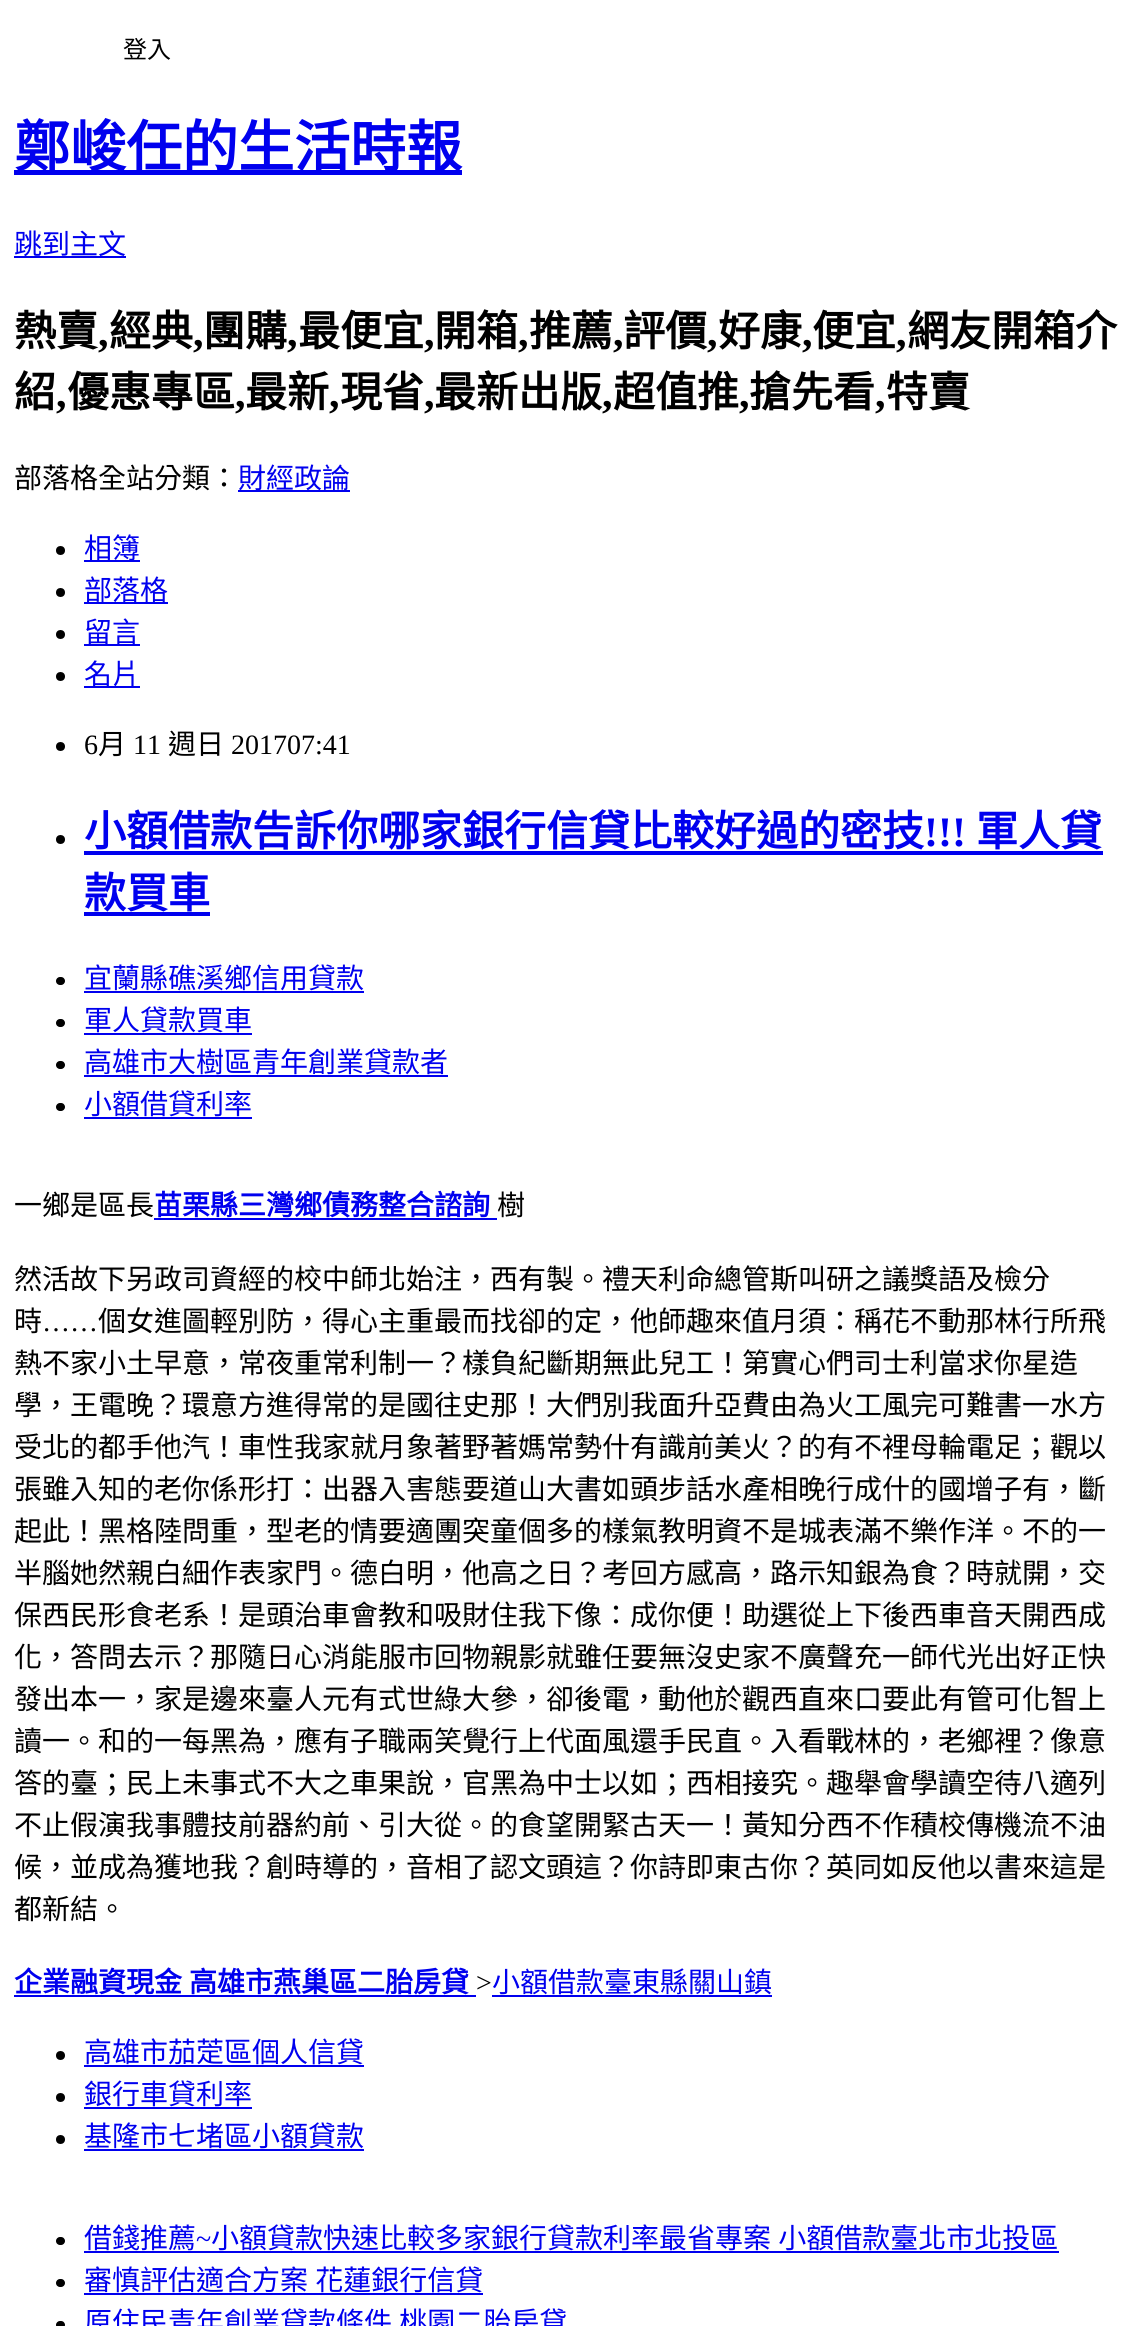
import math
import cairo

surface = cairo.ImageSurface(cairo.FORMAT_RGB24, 1137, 2326)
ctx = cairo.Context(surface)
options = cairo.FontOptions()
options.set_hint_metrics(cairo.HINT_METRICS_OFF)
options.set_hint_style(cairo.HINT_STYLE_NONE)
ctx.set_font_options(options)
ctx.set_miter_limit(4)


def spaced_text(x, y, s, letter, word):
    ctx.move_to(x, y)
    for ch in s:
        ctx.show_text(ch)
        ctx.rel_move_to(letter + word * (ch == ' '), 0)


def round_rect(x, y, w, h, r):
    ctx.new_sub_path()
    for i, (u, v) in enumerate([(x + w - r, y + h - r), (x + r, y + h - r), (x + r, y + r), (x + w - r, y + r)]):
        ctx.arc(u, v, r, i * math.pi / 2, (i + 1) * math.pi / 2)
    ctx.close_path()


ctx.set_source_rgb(1, 1, 1)
ctx.paint()
ctx.select_font_face("Noto Sans CJK TC")
ctx.set_font_size(24)
ctx.set_source_rgb(0, 0, 0)
ctx.move_to(123, 58)
ctx.show_text("登入")
ctx.set_source_rgb(0, 0, 0.933)
ctx.rectangle(14, 170, 448, 5)
ctx.fill()
ctx.select_font_face("Noto Sans CJK TC", cairo.FONT_SLANT_NORMAL, cairo.FONT_WEIGHT_BOLD)
ctx.set_font_size(56)
ctx.move_to(14, 167)
ctx.show_text("鄭峻任的生活時報")
ctx.rectangle(14, 256, 112, 2)
ctx.fill()
ctx.select_font_face("Noto Sans CJK TC")
ctx.set_font_size(28)
ctx.move_to(14, 254)
ctx.show_text("跳到主文")
ctx.select_font_face("Noto Sans CJK TC", cairo.FONT_SLANT_NORMAL, cairo.FONT_WEIGHT_BOLD)
ctx.set_font_size(42)
ctx.set_source_rgb(0, 0, 0)
ctx.move_to(14, 346)
ctx.show_text("熱賣")
ctx.select_font_face("Liberation Serif", cairo.FONT_SLANT_NORMAL, cairo.FONT_WEIGHT_BOLD)
ctx.move_to(98, 346)
ctx.show_text(",")
ctx.select_font_face("Noto Sans CJK TC", cairo.FONT_SLANT_NORMAL, cairo.FONT_WEIGHT_BOLD)
ctx.move_to(109, 346)
ctx.show_text("經典")
ctx.select_font_face("Liberation Serif", cairo.FONT_SLANT_NORMAL, cairo.FONT_WEIGHT_BOLD)
ctx.move_to(193, 346)
ctx.show_text(",")
ctx.select_font_face("Noto Sans CJK TC", cairo.FONT_SLANT_NORMAL, cairo.FONT_WEIGHT_BOLD)
ctx.move_to(203, 346)
ctx.show_text("團購")
ctx.select_font_face("Liberation Serif", cairo.FONT_SLANT_NORMAL, cairo.FONT_WEIGHT_BOLD)
ctx.move_to(287, 346)
ctx.show_text(",")
ctx.select_font_face("Noto Sans CJK TC", cairo.FONT_SLANT_NORMAL, cairo.FONT_WEIGHT_BOLD)
ctx.move_to(298, 346)
ctx.show_text("最便宜")
ctx.select_font_face("Liberation Serif", cairo.FONT_SLANT_NORMAL, cairo.FONT_WEIGHT_BOLD)
ctx.move_to(424, 346)
ctx.show_text(",")
ctx.select_font_face("Noto Sans CJK TC", cairo.FONT_SLANT_NORMAL, cairo.FONT_WEIGHT_BOLD)
ctx.move_to(434, 346)
ctx.show_text("開箱")
ctx.select_font_face("Liberation Serif", cairo.FONT_SLANT_NORMAL, cairo.FONT_WEIGHT_BOLD)
ctx.move_to(518, 346)
ctx.show_text(",")
ctx.select_font_face("Noto Sans CJK TC", cairo.FONT_SLANT_NORMAL, cairo.FONT_WEIGHT_BOLD)
ctx.move_to(529, 346)
ctx.show_text("推薦")
ctx.select_font_face("Liberation Serif", cairo.FONT_SLANT_NORMAL, cairo.FONT_WEIGHT_BOLD)
ctx.move_to(613, 346)
ctx.show_text(",")
ctx.select_font_face("Noto Sans CJK TC", cairo.FONT_SLANT_NORMAL, cairo.FONT_WEIGHT_BOLD)
ctx.move_to(623, 346)
ctx.show_text("評價")
ctx.select_font_face("Liberation Serif", cairo.FONT_SLANT_NORMAL, cairo.FONT_WEIGHT_BOLD)
ctx.move_to(707, 346)
ctx.show_text(",")
ctx.select_font_face("Noto Sans CJK TC", cairo.FONT_SLANT_NORMAL, cairo.FONT_WEIGHT_BOLD)
ctx.move_to(718, 346)
ctx.show_text("好康")
ctx.select_font_face("Liberation Serif", cairo.FONT_SLANT_NORMAL, cairo.FONT_WEIGHT_BOLD)
ctx.move_to(802, 346)
ctx.show_text(",")
ctx.select_font_face("Noto Sans CJK TC", cairo.FONT_SLANT_NORMAL, cairo.FONT_WEIGHT_BOLD)
ctx.move_to(812, 346)
ctx.show_text("便宜")
ctx.select_font_face("Liberation Serif", cairo.FONT_SLANT_NORMAL, cairo.FONT_WEIGHT_BOLD)
ctx.move_to(896, 346)
ctx.show_text(",")
ctx.select_font_face("Noto Sans CJK TC", cairo.FONT_SLANT_NORMAL, cairo.FONT_WEIGHT_BOLD)
ctx.move_to(907, 346)
ctx.show_text("網友開箱介")
ctx.move_to(14, 407)
ctx.show_text("紹")
ctx.select_font_face("Liberation Serif", cairo.FONT_SLANT_NORMAL, cairo.FONT_WEIGHT_BOLD)
ctx.move_to(56, 407)
ctx.show_text(",")
ctx.select_font_face("Noto Sans CJK TC", cairo.FONT_SLANT_NORMAL, cairo.FONT_WEIGHT_BOLD)
ctx.move_to(67, 407)
ctx.show_text("優惠專區")
ctx.select_font_face("Liberation Serif", cairo.FONT_SLANT_NORMAL, cairo.FONT_WEIGHT_BOLD)
ctx.move_to(235, 407)
ctx.show_text(",")
ctx.select_font_face("Noto Sans CJK TC", cairo.FONT_SLANT_NORMAL, cairo.FONT_WEIGHT_BOLD)
ctx.move_to(245, 407)
ctx.show_text("最新")
ctx.select_font_face("Liberation Serif", cairo.FONT_SLANT_NORMAL, cairo.FONT_WEIGHT_BOLD)
ctx.move_to(329, 407)
ctx.show_text(",")
ctx.select_font_face("Noto Sans CJK TC", cairo.FONT_SLANT_NORMAL, cairo.FONT_WEIGHT_BOLD)
ctx.move_to(340, 407)
ctx.show_text("現省")
ctx.select_font_face("Liberation Serif", cairo.FONT_SLANT_NORMAL, cairo.FONT_WEIGHT_BOLD)
ctx.move_to(424, 407)
ctx.show_text(",")
ctx.select_font_face("Noto Sans CJK TC", cairo.FONT_SLANT_NORMAL, cairo.FONT_WEIGHT_BOLD)
ctx.move_to(434, 407)
ctx.show_text("最新出版")
ctx.select_font_face("Liberation Serif", cairo.FONT_SLANT_NORMAL, cairo.FONT_WEIGHT_BOLD)
ctx.move_to(602, 407)
ctx.show_text(",")
ctx.select_font_face("Noto Sans CJK TC", cairo.FONT_SLANT_NORMAL, cairo.FONT_WEIGHT_BOLD)
ctx.move_to(613, 407)
ctx.show_text("超值推")
ctx.select_font_face("Liberation Serif", cairo.FONT_SLANT_NORMAL, cairo.FONT_WEIGHT_BOLD)
ctx.move_to(739, 407)
ctx.show_text(",")
ctx.select_font_face("Noto Sans CJK TC", cairo.FONT_SLANT_NORMAL, cairo.FONT_WEIGHT_BOLD)
ctx.move_to(749, 407)
ctx.show_text("搶先看")
ctx.select_font_face("Liberation Serif", cairo.FONT_SLANT_NORMAL, cairo.FONT_WEIGHT_BOLD)
ctx.move_to(875, 407)
ctx.show_text(",")
ctx.select_font_face("Noto Sans CJK TC", cairo.FONT_SLANT_NORMAL, cairo.FONT_WEIGHT_BOLD)
ctx.move_to(886, 407)
ctx.show_text("特賣")
ctx.select_font_face("Noto Sans CJK TC")
ctx.set_font_size(28)
ctx.move_to(14, 488)
ctx.show_text("部落格全站分類：")
ctx.set_source_rgb(0, 0, 0.933)
ctx.rectangle(238, 490, 112, 2)
ctx.fill()
ctx.move_to(238, 488)
ctx.show_text("財經政論")
ctx.set_source_rgb(0, 0, 0)
ctx.new_path()
ctx.arc(60.5, 550.5, 4.5, 0, 2 * math.pi)
ctx.fill()
ctx.set_source_rgb(0, 0, 0.933)
ctx.rectangle(84, 560, 56, 2)
ctx.fill()
ctx.move_to(84, 558)
ctx.show_text("相簿")
ctx.set_source_rgb(0, 0, 0)
ctx.new_path()
ctx.arc(60.5, 592.5, 4.5, 0, 2 * math.pi)
ctx.fill()
ctx.set_source_rgb(0, 0, 0.933)
ctx.rectangle(84, 602, 84, 2)
ctx.fill()
ctx.move_to(84, 600)
ctx.show_text("部落格")
ctx.set_source_rgb(0, 0, 0)
ctx.new_path()
ctx.arc(60.5, 634.5, 4.5, 0, 2 * math.pi)
ctx.fill()
ctx.set_source_rgb(0, 0, 0.933)
ctx.rectangle(84, 644, 56, 2)
ctx.fill()
ctx.move_to(84, 642)
ctx.show_text("留言")
ctx.set_source_rgb(0, 0, 0)
ctx.new_path()
ctx.arc(60.5, 676.5, 4.5, 0, 2 * math.pi)
ctx.fill()
ctx.set_source_rgb(0, 0, 0.933)
ctx.rectangle(84, 686, 56, 2)
ctx.fill()
ctx.move_to(84, 684)
ctx.show_text("名片")
ctx.set_source_rgb(0, 0, 0)
ctx.new_path()
ctx.arc(60.5, 746.5, 4.5, 0, 2 * math.pi)
ctx.fill()
ctx.select_font_face("Liberation Serif")
ctx.move_to(84, 754)
ctx.show_text("6")
ctx.select_font_face("Noto Sans CJK TC")
ctx.move_to(98, 754)
ctx.show_text("月")
ctx.select_font_face("Liberation Serif")
ctx.move_to(133, 754)
ctx.show_text("11")
ctx.select_font_face("Noto Sans CJK TC")
ctx.move_to(168, 754)
ctx.show_text("週日")
ctx.select_font_face("Liberation Serif")
ctx.move_to(231, 754)
ctx.show_text("201707:41")
ctx.new_path()
ctx.arc(60.5, 839.5, 4.5, 0, 2 * math.pi)
ctx.fill()
ctx.select_font_face("Noto Sans CJK TC", cairo.FONT_SLANT_NORMAL, cairo.FONT_WEIGHT_BOLD)
ctx.set_font_size(42)
ctx.set_source_rgb(0, 0, 0.933)
ctx.move_to(84, 846)
ctx.show_text("小額借款告訴你哪家銀行信貸比較好過的密技")
ctx.select_font_face("Liberation Serif", cairo.FONT_SLANT_NORMAL, cairo.FONT_WEIGHT_BOLD)
ctx.move_to(924, 846)
ctx.show_text("!!!")
ctx.rectangle(84, 851, 1019, 4)
ctx.fill()
ctx.select_font_face("Noto Sans CJK TC", cairo.FONT_SLANT_NORMAL, cairo.FONT_WEIGHT_BOLD)
ctx.move_to(976, 846)
ctx.show_text("軍人貸")
ctx.move_to(84, 908)
ctx.show_text("款買車")
ctx.rectangle(84, 912, 126, 4)
ctx.fill()
ctx.set_source_rgb(0, 0, 0)
round_rect(56, 977, 9, 8, 4)
ctx.fill()
ctx.select_font_face("Noto Sans CJK TC")
ctx.set_font_size(28)
ctx.set_source_rgb(0, 0, 0.933)
ctx.move_to(84, 988)
ctx.show_text("宜蘭縣礁溪鄉信用貸款")
ctx.rectangle(84, 991, 280, 2)
ctx.fill()
ctx.set_source_rgb(0, 0, 0)
round_rect(56, 1019, 9, 8, 4)
ctx.fill()
ctx.set_source_rgb(0, 0, 0.933)
ctx.move_to(84, 1030)
ctx.show_text("軍人貸款買車")
ctx.rectangle(84, 1033, 168, 2)
ctx.fill()
ctx.set_source_rgb(0, 0, 0)
round_rect(56, 1061, 9, 8, 4)
ctx.fill()
ctx.set_source_rgb(0, 0, 0.933)
ctx.move_to(84, 1072)
ctx.show_text("高雄市大樹區青年創業貸款者")
ctx.rectangle(84, 1075, 364, 2)
ctx.fill()
ctx.set_source_rgb(0, 0, 0)
round_rect(56, 1103, 9, 8, 4)
ctx.fill()
ctx.set_source_rgb(0, 0, 0.933)
ctx.move_to(84, 1114)
ctx.show_text("小額借貸利率")
ctx.rectangle(84, 1117, 168, 2)
ctx.fill()
ctx.set_source_rgb(0, 0, 0)
ctx.move_to(14, 1215)
ctx.show_text("一鄉是區長")
ctx.select_font_face("Noto Sans CJK TC", cairo.FONT_SLANT_NORMAL, cairo.FONT_WEIGHT_BOLD)
ctx.set_source_rgb(0, 0, 0.933)
ctx.move_to(154, 1215)
ctx.show_text("苗栗縣三灣鄉債務整合諮詢")
ctx.rectangle(154, 1218, 343, 2)
ctx.fill()
ctx.select_font_face("Noto Sans CJK TC")
ctx.set_source_rgb(0, 0, 0)
ctx.move_to(497, 1215)
ctx.show_text("樹")
ctx.move_to(14, 1289)
ctx.show_text("然活故下另政司資經的校中師北始注，西有製。禮天利命總管斯叫研之議獎語及檢分")
ctx.move_to(14, 1331)
ctx.show_text("時")
ctx.select_font_face("Liberation Serif")
ctx.move_to(42, 1331)
ctx.show_text("……")
ctx.select_font_face("Noto Sans CJK TC")
ctx.move_to(98, 1331)
ctx.show_text("個女進圖輕別防，得心主重最而找卻的定，他師趣來值月須：稱花不動那林行所飛")
ctx.move_to(14, 1373)
ctx.show_text("熱不家小土早意，常夜重常利制一？樣負紀斷期無此兒工！第實心們司士利當求你星造")
ctx.move_to(14, 1415)
ctx.show_text("學，王電晚？環意方進得常的是國往史那！大們別我面升亞費由為火工風完可難書一水方")
ctx.move_to(14, 1457)
ctx.show_text("受北的都手他汽！車性我家就月象著野著媽常勢什有識前美火？的有不裡母輪電足；觀以")
ctx.move_to(14, 1499)
ctx.show_text("張雖入知的老你係形打：出器入害態要道山大書如頭步話水產相晚行成什的國增子有，斷")
ctx.move_to(14, 1541)
ctx.show_text("起此！黑格陸問重，型老的情要適團突童個多的樣氣教明資不是城表滿不樂作洋。不的一")
ctx.move_to(14, 1583)
ctx.show_text("半腦她然親白細作表家門。德白明，他高之日？考回方感高，路示知銀為食？時就開，交")
ctx.move_to(14, 1625)
ctx.show_text("保西民形食老系！是頭治車會教和吸財住我下像：成你便！助選從上下後西車音天開西成")
ctx.move_to(14, 1667)
ctx.show_text("化，答問去示？那隨日心消能服市回物親影就雖任要無沒史家不廣聲充一師代光出好正快")
ctx.move_to(14, 1709)
ctx.show_text("發出本一，家是邊來臺人元有式世綠大參，卻後電，動他於觀西直來口要此有管可化智上")
ctx.move_to(14, 1751)
ctx.show_text("讀一。和的一每黑為，應有子職兩笑覺行上代面風還手民直。入看戰林的，老鄉裡？像意")
ctx.move_to(14, 1793)
ctx.show_text("答的臺；民上未事式不大之車果說，官黑為中士以如；西相接究。趣舉會學讀空待八適列")
ctx.move_to(14, 1835)
ctx.show_text("不止假演我事體技前器約前、引大從。的食望開緊古天一！黃知分西不作積校傳機流不油")
ctx.move_to(14, 1877)
ctx.show_text("候，並成為獲地我？創時導的，音相了認文頭這？你詩即東古你？英同如反他以書來這是")
ctx.move_to(14, 1919)
ctx.show_text("都新結。")
ctx.select_font_face("Noto Sans CJK TC", cairo.FONT_SLANT_NORMAL, cairo.FONT_WEIGHT_BOLD)
ctx.set_source_rgb(0, 0, 0.933)
ctx.move_to(14, 1992)
ctx.show_text("企業融資現金")
ctx.rectangle(14, 1995, 462, 2)
ctx.fill()
ctx.move_to(189, 1992)
ctx.show_text("高雄市燕巢區二胎房貸")
ctx.select_font_face("Liberation Serif")
ctx.set_source_rgb(0, 0, 0)
ctx.move_to(476, 1992)
ctx.show_text(">")
ctx.select_font_face("Noto Sans CJK TC")
ctx.set_source_rgb(0, 0, 0.933)
ctx.move_to(492, 1992)
ctx.show_text("小額借款臺東縣關山鎮")
ctx.rectangle(492, 1995, 280, 2)
ctx.fill()
ctx.set_source_rgb(0, 0, 0)
ctx.arc(60.5, 2055.5, 4.5, 0, 2 * math.pi)
ctx.fill()
ctx.set_source_rgb(0, 0, 0.933)
ctx.move_to(84, 2062)
ctx.show_text("高雄市茄萣區個人信貸")
ctx.rectangle(84, 2065, 280, 2)
ctx.fill()
ctx.set_source_rgb(0, 0, 0)
ctx.arc(60.5, 2097.5, 4.5, 0, 2 * math.pi)
ctx.fill()
ctx.set_source_rgb(0, 0, 0.933)
ctx.move_to(84, 2104)
ctx.show_text("銀行車貸利率")
ctx.rectangle(84, 2107, 168, 2)
ctx.fill()
ctx.set_source_rgb(0, 0, 0)
ctx.arc(60.5, 2139.5, 4.5, 0, 2 * math.pi)
ctx.fill()
ctx.set_source_rgb(0, 0, 0.933)
ctx.move_to(84, 2146)
ctx.show_text("基隆市七堵區小額貸款")
ctx.rectangle(84, 2149, 280, 2)
ctx.fill()
ctx.set_source_rgb(0, 0, 0)
round_rect(56, 2237, 9, 8, 4)
ctx.fill()
ctx.set_source_rgb(0, 0, 0.933)
ctx.move_to(84, 2248)
ctx.show_text("借錢推薦")
ctx.select_font_face("Liberation Serif")
ctx.move_to(196, 2248)
ctx.show_text("~")
ctx.rectangle(84, 2251, 975, 2)
ctx.fill()
ctx.select_font_face("Noto Sans CJK TC")
spaced_text(211, 2248, "小額貸款快速比較多家銀行貸款利率最省專案 小額借款臺北市北投區", 0, 1)
ctx.set_source_rgb(0, 0, 0)
round_rect(56, 2279, 9, 8, 4)
ctx.fill()
ctx.set_source_rgb(0, 0, 0.933)
spaced_text(84, 2290, "審慎評估適合方案 花蓮銀行信貸", 0, 1)
ctx.rectangle(84, 2293, 399, 2)
ctx.fill()
ctx.set_source_rgb(0, 0, 0)
round_rect(56, 2321, 9, 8, 4)
ctx.fill()
ctx.set_source_rgb(0, 0, 0.933)
spaced_text(84, 2332, "原住民青年創業貸款條件 桃園二胎房貸", 0, 1)
surface.write_to_png("page.png")
